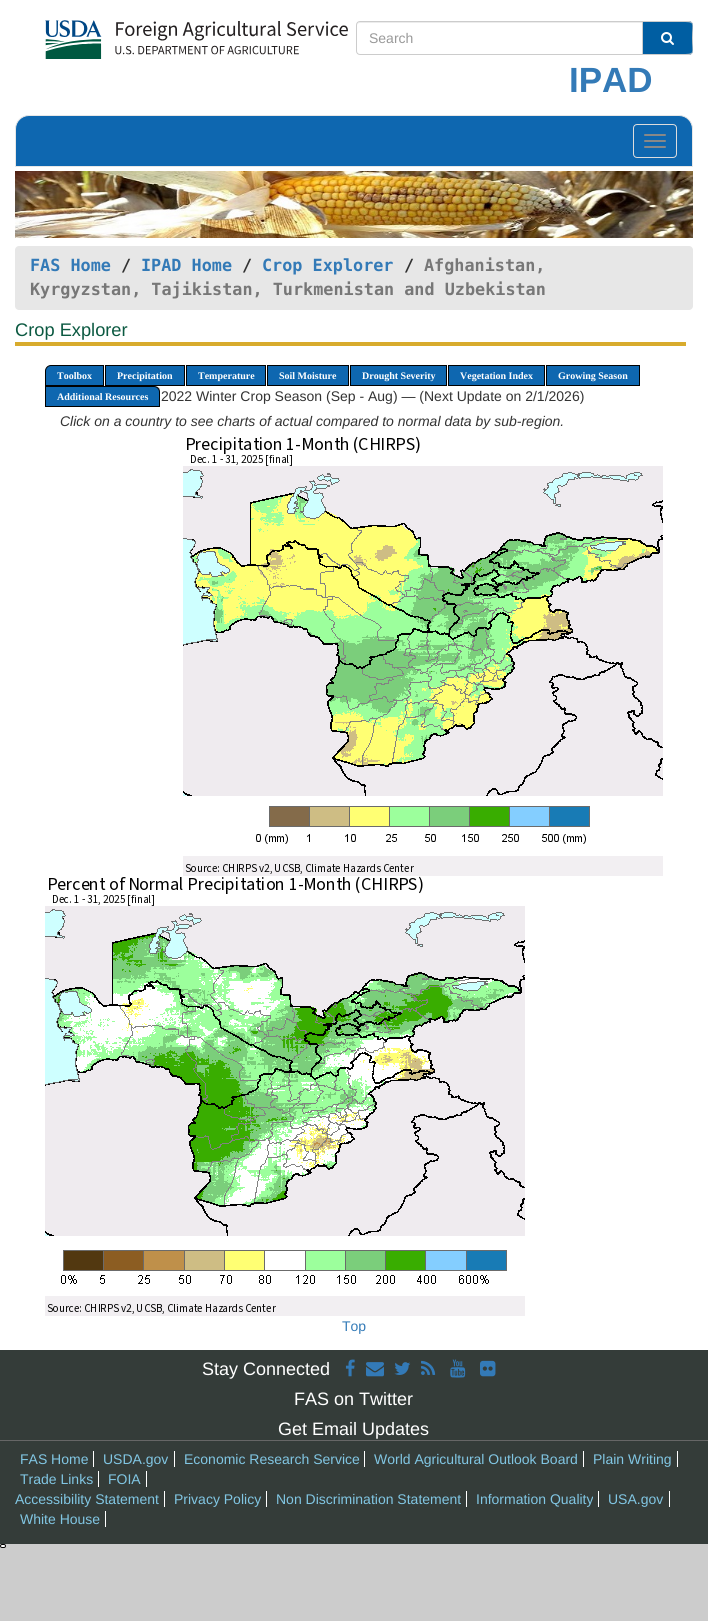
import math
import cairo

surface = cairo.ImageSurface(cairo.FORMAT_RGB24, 708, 1621)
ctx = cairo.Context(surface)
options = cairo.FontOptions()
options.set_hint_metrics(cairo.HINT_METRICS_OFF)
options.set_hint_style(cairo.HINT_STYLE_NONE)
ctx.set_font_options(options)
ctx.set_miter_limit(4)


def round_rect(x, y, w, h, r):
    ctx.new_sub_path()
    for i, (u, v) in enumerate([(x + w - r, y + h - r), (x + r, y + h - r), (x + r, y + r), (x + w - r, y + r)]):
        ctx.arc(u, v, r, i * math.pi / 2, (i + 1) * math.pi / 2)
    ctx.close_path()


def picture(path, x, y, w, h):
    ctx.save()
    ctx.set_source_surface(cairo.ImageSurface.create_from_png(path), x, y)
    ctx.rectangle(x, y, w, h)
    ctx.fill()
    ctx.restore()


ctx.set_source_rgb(0.8, 0.8, 0.8)
ctx.paint()
ctx.set_source_rgb(1, 1, 1)
ctx.rectangle(0, 0, 708, 1350)
ctx.fill()
picture("img1.png", 45, 20, 303, 39)
ctx.set_source_rgb(0.925, 0.925, 0.925)
ctx.new_path()
ctx.move_to(360, 23)
ctx.line_to(642, 23)
ctx.line_to(642, 22)
ctx.line_to(360, 22)
ctx.curve_to(358, 22, 357, 24, 357, 26)
ctx.curve_to(357, 24, 358, 23, 360, 23)
ctx.close_path()
ctx.fill()
ctx.new_path()
ctx.move_to(360, 21.5)
ctx.line_to(642.5, 21.5)
ctx.line_to(642.5, 54.5)
ctx.line_to(360, 54.5)
ctx.curve_to(358, 54.5, 356.5, 53, 356.5, 51)
ctx.line_to(356.5, 25)
ctx.curve_to(356.5, 23, 358, 21.5, 360, 21.5)
ctx.close_path()
ctx.set_source_rgb(0.8, 0.8, 0.8)
ctx.set_line_width(1)
ctx.stroke()
ctx.select_font_face("Liberation Sans")
ctx.set_font_size(14)
ctx.set_source_rgb(0.6, 0.6, 0.6)
ctx.move_to(369, 43)
ctx.show_text("Search")
ctx.set_source_rgb(0, 0.369, 0.635)
ctx.new_path()
ctx.move_to(643, 21)
ctx.line_to(689, 21)
ctx.curve_to(691, 21, 693, 23, 693, 25)
ctx.line_to(693, 51)
ctx.curve_to(693, 53, 691, 55, 689, 55)
ctx.line_to(643, 55)
ctx.close_path()
ctx.fill()
ctx.set_source_rgb(0.8, 0.8, 0.8)
ctx.set_fill_rule(cairo.FILL_RULE_EVEN_ODD)
ctx.new_path()
ctx.move_to(643, 21)
ctx.line_to(689, 21)
ctx.curve_to(691, 21, 693, 23, 693, 25)
ctx.line_to(693, 51)
ctx.curve_to(693, 53, 691, 55, 689, 55)
ctx.line_to(643, 55)
ctx.close_path()
ctx.move_to(643, 22)
ctx.line_to(681, 22)
ctx.curve_to(696, 22, 692, 22, 692, 38)
ctx.curve_to(692, 54, 696, 54, 681, 54)
ctx.line_to(643, 54)
ctx.close_path()
ctx.fill()
picture("img2.png", 661, 32, 13, 13)
ctx.select_font_face("Liberation Sans", cairo.FONT_SLANT_NORMAL, cairo.FONT_WEIGHT_BOLD)
ctx.set_font_size(35)
ctx.set_source_rgb(0.2, 0.478, 0.718)
ctx.move_to(569, 92)
ctx.show_text("IPAD")
ctx.set_source_rgb(0.055, 0.404, 0.69)
ctx.new_path()
ctx.move_to(29, 115.5)
ctx.line_to(679, 115.5)
ctx.curve_to(686.5, 115.5, 692.5, 121.5, 692.5, 129)
ctx.line_to(692.5, 166.5)
ctx.line_to(15.5, 166.5)
ctx.line_to(15.5, 129)
ctx.curve_to(15.5, 121.5, 21.5, 115.5, 29, 115.5)
ctx.close_path()
ctx.fill_preserve()
ctx.set_source_rgb(0.906, 0.906, 0.906)
ctx.stroke()
round_rect(633.5, 124.5, 43, 33, 3.5)
ctx.set_source_rgb(0.867, 0.867, 0.867)
ctx.stroke()
ctx.set_source_rgb(0.533, 0.533, 0.533)
round_rect(644, 134, 22, 2, 1)
ctx.fill()
round_rect(644, 140, 22, 2, 1)
ctx.fill()
round_rect(644, 146, 22, 2, 1)
ctx.fill()
picture("img3.png", 15, 171, 678, 67)
ctx.set_source_rgb(0.906, 0.906, 0.906)
round_rect(15, 246, 678, 64, 4)
ctx.fill()
ctx.select_font_face("DejaVu Sans Mono", cairo.FONT_SLANT_NORMAL, cairo.FONT_WEIGHT_BOLD)
ctx.set_font_size(16.8)
ctx.set_source_rgb(0.2, 0.478, 0.718)
ctx.move_to(30, 271)
ctx.show_text("FAS Home")
ctx.set_source_rgb(0.2, 0.2, 0.2)
ctx.move_to(121, 271)
ctx.show_text("/")
ctx.set_source_rgb(0.2, 0.478, 0.718)
ctx.move_to(141, 271)
ctx.show_text("IPAD Home")
ctx.set_source_rgb(0.2, 0.2, 0.2)
ctx.move_to(242, 271)
ctx.show_text("/")
ctx.set_source_rgb(0.2, 0.478, 0.718)
ctx.move_to(262, 271)
ctx.show_text("Crop Explorer")
ctx.set_source_rgb(0.2, 0.2, 0.2)
ctx.move_to(404, 271)
ctx.show_text("/")
ctx.set_source_rgb(0.467, 0.467, 0.467)
ctx.move_to(424, 271)
ctx.show_text("Afghanistan,")
ctx.move_to(30, 295)
ctx.show_text("Kyrgyzstan, Tajikistan, Turkmenistan and Uzbekistan")
ctx.set_source_rgb(0.847, 0.671, 0.176)
ctx.rectangle(15, 342, 671, 4)
ctx.fill()
ctx.select_font_face("Liberation Sans")
ctx.set_font_size(18.25)
ctx.set_source_rgb(0.043, 0.349, 0.255)
ctx.move_to(15, 336)
ctx.show_text("Crop Explorer")
ctx.set_source_rgb(0.055, 0.404, 0.69)
ctx.new_path()
ctx.move_to(51, 365.5)
ctx.line_to(103.5, 365.5)
ctx.line_to(103.5, 385.5)
ctx.line_to(45.5, 385.5)
ctx.line_to(45.5, 371)
ctx.curve_to(45.5, 368, 48, 365.5, 51, 365.5)
ctx.close_path()
ctx.fill_preserve()
ctx.set_source_rgb(0, 0, 0)
ctx.stroke()
ctx.select_font_face("Liberation Serif", cairo.FONT_SLANT_NORMAL, cairo.FONT_WEIGHT_BOLD)
ctx.set_font_size(10)
ctx.set_source_rgb(1, 1, 1)
ctx.move_to(57, 379)
ctx.show_text("Toolbox")
ctx.set_source_rgb(0.055, 0.404, 0.69)
ctx.rectangle(105.5, 365.5, 79, 20)
ctx.fill_preserve()
ctx.set_source_rgb(0, 0, 0)
ctx.stroke()
ctx.set_source_rgb(1, 1, 1)
ctx.move_to(117, 379)
ctx.show_text("Precipitation")
ctx.set_source_rgb(0.055, 0.404, 0.69)
ctx.rectangle(186.5, 365.5, 79, 20)
ctx.fill_preserve()
ctx.set_source_rgb(0, 0, 0)
ctx.stroke()
ctx.set_source_rgb(1, 1, 1)
ctx.move_to(198, 379)
ctx.show_text("Temperature")
ctx.set_source_rgb(0.055, 0.404, 0.69)
ctx.rectangle(267.5, 365.5, 81, 20)
ctx.fill_preserve()
ctx.set_source_rgb(0, 0, 0)
ctx.stroke()
ctx.set_source_rgb(1, 1, 1)
ctx.move_to(279, 379)
ctx.show_text("Soil Moisture")
ctx.set_source_rgb(0.055, 0.404, 0.69)
ctx.rectangle(350.5, 365.5, 96, 20)
ctx.fill_preserve()
ctx.set_source_rgb(0, 0, 0)
ctx.stroke()
ctx.set_source_rgb(1, 1, 1)
ctx.move_to(362, 379)
ctx.show_text("Drought Severity")
ctx.set_source_rgb(0.055, 0.404, 0.69)
ctx.rectangle(448.5, 365.5, 96, 20)
ctx.fill_preserve()
ctx.set_source_rgb(0, 0, 0)
ctx.stroke()
ctx.set_source_rgb(1, 1, 1)
ctx.move_to(460, 379)
ctx.show_text("Vegetation Index")
ctx.set_source_rgb(0.055, 0.404, 0.69)
ctx.rectangle(546.5, 365.5, 93, 20)
ctx.fill_preserve()
ctx.set_source_rgb(0, 0, 0)
ctx.stroke()
ctx.set_source_rgb(1, 1, 1)
ctx.move_to(558, 379)
ctx.show_text("Growing Season")
ctx.set_source_rgb(0.784, 0.784, 0.784)
ctx.new_path()
ctx.move_to(45, 386)
ctx.line_to(155, 386)
ctx.curve_to(158.5, 386, 161, 388.5, 161, 392)
ctx.line_to(161, 407)
ctx.line_to(45, 407)
ctx.close_path()
ctx.fill()
ctx.set_source_rgb(1, 1, 1)
ctx.rectangle(160, 389, 1, 18)
ctx.fill()
ctx.set_source_rgb(0.055, 0.404, 0.69)
ctx.new_path()
ctx.move_to(45.5, 386.5)
ctx.line_to(154, 386.5)
ctx.curve_to(157, 386.5, 159.5, 389, 159.5, 392)
ctx.line_to(159.5, 406.5)
ctx.line_to(45.5, 406.5)
ctx.close_path()
ctx.fill_preserve()
ctx.set_source_rgb(0, 0, 0)
ctx.stroke()
ctx.set_source_rgb(1, 1, 1)
ctx.move_to(57, 400)
ctx.show_text("Additional Resources")
ctx.select_font_face("Liberation Sans")
ctx.set_font_size(14)
ctx.set_source_rgb(0.2, 0.2, 0.2)
ctx.move_to(161, 401)
ctx.show_text("2022 Winter Crop Season (Sep - Aug) — (Next Update on 2/1/2026)")
ctx.select_font_face("Liberation Sans", cairo.FONT_SLANT_ITALIC)
ctx.move_to(60, 426)
ctx.show_text("Click on a country to see charts of actual compared to normal data by sub-region.")
picture("img4.png", 183, 436, 480, 440)
picture("img5.png", 45, 876, 480, 440)
ctx.select_font_face("Liberation Sans")
ctx.set_source_rgb(0.2, 0.478, 0.718)
ctx.move_to(342, 1331)
ctx.show_text("Top")
ctx.set_source_rgb(0.204, 0.235, 0.224)
ctx.rectangle(0, 1350, 708, 90)
ctx.fill()
ctx.set_font_size(18)
ctx.set_source_rgb(1, 1, 1)
ctx.move_to(202, 1375)
ctx.show_text("Stay Connected")
picture("img6.png", 345, 1359, 10, 18)
picture("img7.png", 366, 1362, 18, 15)
picture("img8.png", 394, 1362, 17, 13)
picture("img9.png", 421, 1360, 15, 15)
picture("img10.png", 450, 1359, 16, 19)
picture("img11.png", 480, 1360, 16, 17)
ctx.move_to(294, 1405)
ctx.show_text("FAS on Twitter")
ctx.move_to(278, 1435)
ctx.show_text("Get Email Updates")
ctx.set_source_rgb(0.204, 0.235, 0.224)
ctx.rectangle(0, 1441, 708, 103)
ctx.fill()
ctx.set_source_rgb(0.4, 0.4, 0.4)
ctx.rectangle(0, 1440, 708, 1)
ctx.fill()
ctx.set_font_size(14)
ctx.set_source_rgb(0.506, 0.776, 0.89)
ctx.move_to(20, 1464)
ctx.show_text("FAS Home")
ctx.set_source_rgb(1, 1, 1)
ctx.rectangle(93, 1451, 1, 16)
ctx.fill()
ctx.set_source_rgb(0.506, 0.776, 0.89)
ctx.move_to(103, 1464)
ctx.show_text("USDA.gov")
ctx.set_source_rgb(1, 1, 1)
ctx.rectangle(174, 1451, 1, 16)
ctx.fill()
ctx.set_source_rgb(0.506, 0.776, 0.89)
ctx.move_to(184, 1464)
ctx.show_text("Economic Research Service")
ctx.set_source_rgb(1, 1, 1)
ctx.rectangle(364, 1451, 1, 16)
ctx.fill()
ctx.set_source_rgb(0.506, 0.776, 0.89)
ctx.move_to(374, 1464)
ctx.show_text("World Agricultural Outlook Board")
ctx.set_source_rgb(1, 1, 1)
ctx.rectangle(583, 1451, 1, 16)
ctx.fill()
ctx.set_source_rgb(0.506, 0.776, 0.89)
ctx.move_to(593, 1464)
ctx.show_text("Plain Writing")
ctx.set_source_rgb(1, 1, 1)
ctx.rectangle(677, 1451, 1, 16)
ctx.fill()
ctx.set_source_rgb(0.506, 0.776, 0.89)
ctx.move_to(20, 1484)
ctx.show_text("Trade Links")
ctx.set_source_rgb(1, 1, 1)
ctx.rectangle(98, 1471, 1, 16)
ctx.fill()
ctx.set_source_rgb(0.506, 0.776, 0.89)
ctx.move_to(108, 1484)
ctx.show_text("FOIA")
ctx.set_source_rgb(1, 1, 1)
ctx.rectangle(146, 1471, 1, 16)
ctx.fill()
ctx.set_source_rgb(0.506, 0.776, 0.89)
ctx.move_to(15, 1504)
ctx.show_text("Accessibility Statement")
ctx.set_source_rgb(1, 1, 1)
ctx.rectangle(164, 1491, 1, 16)
ctx.fill()
ctx.set_source_rgb(0.506, 0.776, 0.89)
ctx.move_to(174, 1504)
ctx.show_text("Privacy Policy")
ctx.set_source_rgb(1, 1, 1)
ctx.rectangle(266, 1491, 1, 16)
ctx.fill()
ctx.set_source_rgb(0.506, 0.776, 0.89)
ctx.move_to(276, 1504)
ctx.show_text("Non Discrimination Statement")
ctx.set_source_rgb(1, 1, 1)
ctx.rectangle(466, 1491, 1, 16)
ctx.fill()
ctx.set_source_rgb(0.506, 0.776, 0.89)
ctx.move_to(476, 1504)
ctx.show_text("Information Quality")
ctx.set_source_rgb(1, 1, 1)
ctx.rectangle(598, 1491, 1, 16)
ctx.fill()
ctx.set_source_rgb(0.506, 0.776, 0.89)
ctx.move_to(608, 1504)
ctx.show_text("USA.gov")
ctx.set_source_rgb(1, 1, 1)
ctx.rectangle(669, 1491, 1, 16)
ctx.fill()
ctx.set_source_rgb(0.506, 0.776, 0.89)
ctx.move_to(20, 1524)
ctx.show_text("White House")
ctx.set_source_rgb(1, 1, 1)
ctx.rectangle(105, 1511, 1, 16)
ctx.fill()
round_rect(0.5, 1544.5, 5, 3, 1.5)
ctx.fill_preserve()
ctx.set_source_rgb(0, 0, 0)
ctx.stroke()
surface.write_to_png("page.png")
